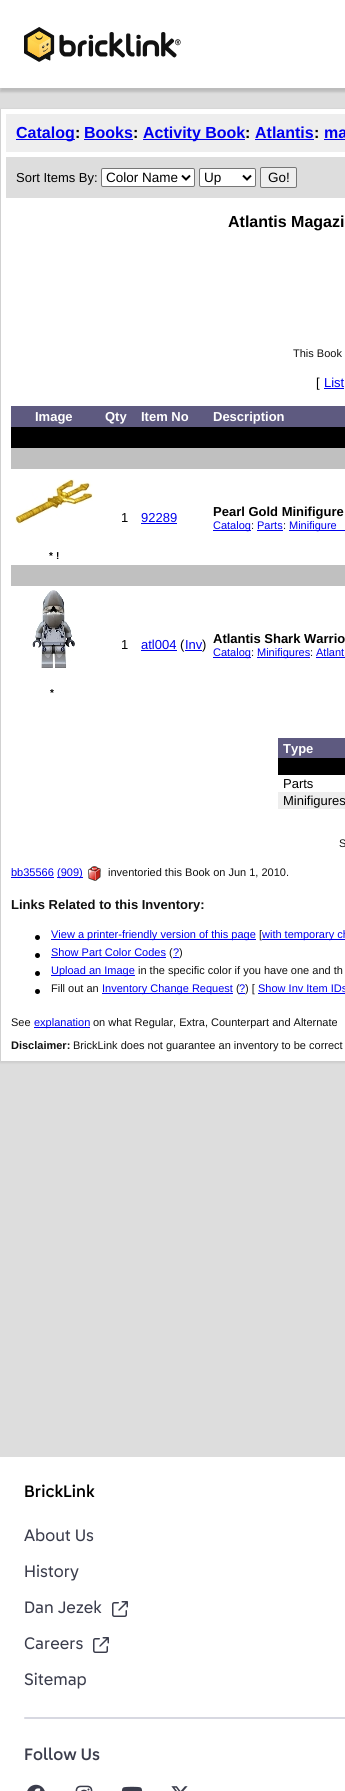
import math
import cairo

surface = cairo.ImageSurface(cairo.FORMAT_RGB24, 345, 1791)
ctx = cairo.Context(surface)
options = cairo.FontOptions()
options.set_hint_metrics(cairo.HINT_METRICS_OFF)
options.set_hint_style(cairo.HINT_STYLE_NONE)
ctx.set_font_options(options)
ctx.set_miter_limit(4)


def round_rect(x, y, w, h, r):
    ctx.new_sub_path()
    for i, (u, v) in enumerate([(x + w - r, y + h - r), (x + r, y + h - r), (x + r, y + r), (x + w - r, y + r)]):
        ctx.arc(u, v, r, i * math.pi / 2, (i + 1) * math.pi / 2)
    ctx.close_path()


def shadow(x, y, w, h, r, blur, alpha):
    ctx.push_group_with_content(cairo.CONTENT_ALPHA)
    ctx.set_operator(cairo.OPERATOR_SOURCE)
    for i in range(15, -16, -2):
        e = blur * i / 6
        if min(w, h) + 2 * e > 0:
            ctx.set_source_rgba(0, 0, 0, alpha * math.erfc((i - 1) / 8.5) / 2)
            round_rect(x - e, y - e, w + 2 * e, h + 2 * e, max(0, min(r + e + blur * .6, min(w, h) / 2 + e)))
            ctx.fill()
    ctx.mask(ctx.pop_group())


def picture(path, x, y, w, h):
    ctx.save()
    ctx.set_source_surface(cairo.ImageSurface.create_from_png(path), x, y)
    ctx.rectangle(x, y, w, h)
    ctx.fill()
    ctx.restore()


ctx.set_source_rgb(0.867, 0.867, 0.867)
ctx.paint()
ctx.set_source_rgb(0, 0, 0)
shadow(0, 4, 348, 88, 0, 1, 0.15)
ctx.set_source_rgb(1, 1, 1)
ctx.rectangle(0, 0, 345, 88)
ctx.fill()
picture("img1.png", 24, 27, 157, 35)
ctx.set_source_rgb(0.8, 0.8, 0.8)
shadow(0, 109, 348, 954, 0, 1, 1)
ctx.set_source_rgb(1, 1, 1)
ctx.rectangle(1, 109, 344, 952)
ctx.fill()
ctx.set_source_rgb(0.933, 0.933, 0.933)
ctx.rectangle(6, 114, 339, 38)
ctx.fill()
ctx.set_source_rgb(0, 0, 0.933)
ctx.rectangle(16, 139, 59, 1)
ctx.fill()
ctx.select_font_face("Liberation Sans", cairo.FONT_SLANT_NORMAL, cairo.FONT_WEIGHT_BOLD)
ctx.set_font_size(16)
ctx.move_to(16, 138)
ctx.show_text("Catalog")
ctx.set_source_rgb(0, 0, 0)
ctx.move_to(75, 138)
ctx.show_text(":")
ctx.set_source_rgb(0, 0, 0.933)
ctx.move_to(84, 138)
ctx.show_text("Books")
ctx.set_source_rgb(0, 0, 0)
ctx.move_to(133, 138)
ctx.show_text(":")
ctx.set_source_rgb(0, 0, 0.933)
ctx.rectangle(84, 139, 49, 1)
ctx.fill()
ctx.rectangle(143, 139, 102, 1)
ctx.fill()
ctx.move_to(143, 138)
ctx.show_text("Activity Book")
ctx.set_source_rgb(0, 0, 0)
ctx.move_to(245, 138)
ctx.show_text(":")
ctx.set_source_rgb(0, 0, 0.933)
ctx.move_to(255, 138)
ctx.show_text("Atlantis")
ctx.set_source_rgb(0, 0, 0)
ctx.move_to(314, 138)
ctx.show_text(":")
ctx.set_source_rgb(0, 0, 0.933)
ctx.rectangle(255, 139, 59, 1)
ctx.fill()
ctx.move_to(324, 138)
ctx.show_text("ma")
ctx.rectangle(324, 139, 21, 1)
ctx.fill()
ctx.set_source_rgb(0.867, 0.867, 0.867)
ctx.rectangle(6, 157, 339, 41)
ctx.fill()
ctx.select_font_face("Liberation Sans")
ctx.set_font_size(13)
ctx.set_source_rgb(0, 0, 0)
ctx.move_to(16, 182)
ctx.show_text("Sort Items By:")
ctx.set_source_rgb(1, 1, 1)
round_rect(101.5, 168.5, 93, 18, 1.5)
ctx.fill_preserve()
ctx.set_source_rgb(0.463, 0.463, 0.463)
ctx.set_line_width(1)
ctx.stroke()
ctx.new_path()
ctx.move_to(182, 175.5)
ctx.line_to(186, 179.5)
ctx.line_to(190, 175.5)
ctx.set_source_rgb(0, 0, 0)
ctx.set_line_width(2)
ctx.stroke()
ctx.set_font_size(13.5)
ctx.move_to(106, 182)
ctx.show_text("Color Name")
ctx.set_source_rgb(1, 1, 1)
round_rect(199.5, 168.5, 56, 18, 1.5)
ctx.fill_preserve()
ctx.set_source_rgb(0.463, 0.463, 0.463)
ctx.set_line_width(1)
ctx.stroke()
ctx.new_path()
ctx.move_to(243, 175.5)
ctx.line_to(247, 179.5)
ctx.line_to(251, 175.5)
ctx.set_source_rgb(0, 0, 0)
ctx.set_line_width(2)
ctx.stroke()
ctx.move_to(204, 182)
ctx.show_text("Up")
ctx.set_source_rgb(0.937, 0.937, 0.937)
round_rect(260.5, 167.5, 36, 20, 1.5)
ctx.fill_preserve()
ctx.set_source_rgb(0.463, 0.463, 0.463)
ctx.set_line_width(1)
ctx.stroke()
ctx.set_source_rgb(0, 0, 0)
ctx.move_to(268, 182)
ctx.show_text("Go!")
ctx.select_font_face("Liberation Sans", cairo.FONT_SLANT_NORMAL, cairo.FONT_WEIGHT_BOLD)
ctx.set_font_size(16)
ctx.move_to(228, 227)
ctx.show_text("Atlantis Magazi")
ctx.select_font_face("Liberation Sans")
ctx.set_font_size(11)
ctx.set_source_rgb(0.067, 0.067, 0.067)
ctx.move_to(293, 357)
ctx.show_text("This Book")
ctx.set_font_size(13)
ctx.set_source_rgb(0, 0, 0)
ctx.move_to(316, 387)
ctx.show_text("[")
ctx.set_source_rgb(0, 0, 0.933)
ctx.move_to(324, 387)
ctx.show_text("List")
ctx.rectangle(324, 388, 20, 1)
ctx.fill()
ctx.set_source_rgb(0.369, 0.353, 0.502)
ctx.rectangle(11, 406, 334, 21)
ctx.fill()
ctx.select_font_face("Liberation Sans", cairo.FONT_SLANT_NORMAL, cairo.FONT_WEIGHT_BOLD)
ctx.set_source_rgb(1, 1, 1)
ctx.move_to(35, 421)
ctx.show_text("Image")
ctx.move_to(105, 421)
ctx.show_text("Qty")
ctx.move_to(141, 421)
ctx.show_text("Item No")
ctx.move_to(213, 421)
ctx.show_text("Description")
ctx.set_source_rgb(0, 0, 0)
ctx.rectangle(11, 427, 334, 21)
ctx.fill()
ctx.set_source_rgb(0.753, 0.753, 0.753)
ctx.rectangle(11, 448, 334, 21)
ctx.fill()
ctx.select_font_face("Liberation Sans")
ctx.set_source_rgb(0, 0, 0)
ctx.move_to(121, 522)
ctx.show_text("1")
ctx.set_source_rgb(0, 0, 0.933)
ctx.move_to(141, 522)
ctx.show_text("92289")
ctx.rectangle(141, 523, 36, 1)
ctx.fill()
ctx.select_font_face("Liberation Sans", cairo.FONT_SLANT_NORMAL, cairo.FONT_WEIGHT_BOLD)
ctx.set_source_rgb(0, 0, 0)
ctx.move_to(213, 516)
ctx.show_text("Pearl Gold Minifigure")
ctx.set_source_rgb(0, 0, 0.933)
ctx.rectangle(213, 530, 38, 1)
ctx.fill()
ctx.select_font_face("Liberation Sans")
ctx.set_font_size(11)
ctx.move_to(213, 529)
ctx.show_text("Catalog")
ctx.set_source_rgb(0.067, 0.067, 0.067)
ctx.move_to(251, 529)
ctx.show_text(":")
ctx.set_source_rgb(0, 0, 0.933)
ctx.move_to(257, 529)
ctx.show_text("Parts")
ctx.set_source_rgb(0.067, 0.067, 0.067)
ctx.move_to(283, 529)
ctx.show_text(":")
ctx.set_source_rgb(0, 0, 0.933)
ctx.rectangle(257, 530, 26, 1)
ctx.fill()
ctx.rectangle(289, 530, 56, 1)
ctx.fill()
ctx.move_to(289, 529)
ctx.show_text("Minifigure")
picture("img2.png", 15, 479, 78, 46)
ctx.select_font_face("Liberation Sans", cairo.FONT_SLANT_NORMAL, cairo.FONT_WEIGHT_BOLD)
ctx.set_font_size(10)
ctx.set_source_rgb(0, 0, 0)
ctx.move_to(49, 559)
ctx.show_text("*")
ctx.move_to(56, 559)
ctx.show_text("!")
ctx.set_source_rgb(0.753, 0.753, 0.753)
ctx.rectangle(11, 565, 334, 21)
ctx.fill()
ctx.select_font_face("Liberation Sans")
ctx.set_font_size(13)
ctx.set_source_rgb(0, 0, 0)
ctx.move_to(121, 649)
ctx.show_text("1")
ctx.set_source_rgb(0, 0, 0.933)
ctx.move_to(141, 649)
ctx.show_text("atl004")
ctx.rectangle(141, 650, 36, 1)
ctx.fill()
ctx.set_source_rgb(0, 0, 0)
ctx.move_to(180, 649)
ctx.show_text("(")
ctx.set_source_rgb(0, 0, 0.933)
ctx.move_to(185, 649)
ctx.show_text("Inv")
ctx.rectangle(185, 650, 17, 1)
ctx.fill()
ctx.set_source_rgb(0, 0, 0)
ctx.move_to(202, 649)
ctx.show_text(")")
ctx.select_font_face("Liberation Sans", cairo.FONT_SLANT_NORMAL, cairo.FONT_WEIGHT_BOLD)
ctx.move_to(213, 643)
ctx.show_text("Atlantis Shark Warrio")
ctx.set_source_rgb(0, 0, 0.933)
ctx.rectangle(213, 657, 38, 1)
ctx.fill()
ctx.select_font_face("Liberation Sans")
ctx.set_font_size(11)
ctx.move_to(213, 656)
ctx.show_text("Catalog")
ctx.set_source_rgb(0.067, 0.067, 0.067)
ctx.move_to(251, 656)
ctx.show_text(":")
ctx.set_source_rgb(0, 0, 0.933)
ctx.rectangle(257, 657, 53, 1)
ctx.fill()
ctx.move_to(257, 656)
ctx.show_text("Minifigures")
ctx.set_source_rgb(0.067, 0.067, 0.067)
ctx.move_to(310, 656)
ctx.show_text(":")
ctx.set_source_rgb(0, 0, 0.933)
ctx.move_to(316, 656)
ctx.show_text("Atlant")
ctx.rectangle(316, 657, 29, 1)
ctx.fill()
picture("img3.png", 32, 590, 43, 78)
ctx.select_font_face("Liberation Sans", cairo.FONT_SLANT_NORMAL, cairo.FONT_WEIGHT_BOLD)
ctx.set_font_size(10)
ctx.set_source_rgb(0, 0, 0)
ctx.move_to(50, 696)
ctx.show_text("*")
ctx.set_source_rgb(0.369, 0.353, 0.502)
ctx.rectangle(278, 738, 67, 20)
ctx.fill()
ctx.set_font_size(13)
ctx.set_source_rgb(1, 1, 1)
ctx.move_to(283, 753)
ctx.show_text("Type")
ctx.set_source_rgb(0, 0, 0)
ctx.rectangle(278, 758, 67, 17)
ctx.fill()
ctx.select_font_face("Liberation Sans")
ctx.move_to(283, 788)
ctx.show_text("Parts")
ctx.set_source_rgb(0.933, 0.933, 0.933)
ctx.rectangle(278, 792, 67, 17)
ctx.fill()
ctx.set_source_rgb(0, 0, 0)
ctx.move_to(283, 805)
ctx.show_text("Minifigures")
ctx.set_font_size(11)
ctx.set_source_rgb(0.067, 0.067, 0.067)
ctx.move_to(339, 847)
ctx.show_text("S")
ctx.set_source_rgb(0, 0, 0.933)
ctx.move_to(11, 876)
ctx.show_text("bb35566")
ctx.rectangle(11, 877, 43, 1)
ctx.fill()
ctx.rectangle(57, 877, 26, 1)
ctx.fill()
ctx.move_to(57, 876)
ctx.show_text("(909)")
picture("img4.png", 88, 866, 13, 15)
ctx.set_source_rgb(0.067, 0.067, 0.067)
ctx.move_to(108, 876)
ctx.show_text("inventoried this Book on Jun 1, 2010.")
ctx.select_font_face("Liberation Sans", cairo.FONT_SLANT_NORMAL, cairo.FONT_WEIGHT_BOLD)
ctx.set_font_size(13)
ctx.move_to(11, 909)
ctx.show_text("Links Related to this Inventory:")
ctx.set_source_rgb(0, 0, 0)
ctx.new_path()
ctx.arc(37.5, 937.5, 2.5, 0, 2 * math.pi)
ctx.fill()
ctx.set_source_rgb(0, 0, 0.933)
ctx.rectangle(51, 939, 205, 1)
ctx.fill()
ctx.select_font_face("Liberation Sans")
ctx.set_font_size(11)
ctx.move_to(51, 938)
ctx.show_text("View a printer-friendly version of this page")
ctx.set_source_rgb(0.067, 0.067, 0.067)
ctx.move_to(259, 938)
ctx.show_text("[")
ctx.set_source_rgb(0, 0, 0.933)
ctx.rectangle(262, 939, 83, 1)
ctx.fill()
ctx.move_to(262, 938)
ctx.show_text("with temporary ch")
ctx.set_source_rgb(0, 0, 0)
ctx.new_path()
ctx.arc(37.5, 955.5, 2.5, 0, 2 * math.pi)
ctx.fill()
ctx.set_source_rgb(0, 0, 0.933)
ctx.move_to(51, 956)
ctx.show_text("Show Part Color Codes")
ctx.rectangle(51, 957, 115, 1)
ctx.fill()
ctx.set_source_rgb(0.067, 0.067, 0.067)
ctx.move_to(169, 956)
ctx.show_text("(")
ctx.set_source_rgb(0, 0, 0.933)
ctx.rectangle(173, 957, 6, 1)
ctx.fill()
ctx.move_to(173, 956)
ctx.show_text("?")
ctx.set_source_rgb(0.067, 0.067, 0.067)
ctx.move_to(179, 956)
ctx.show_text(")")
ctx.set_source_rgb(0, 0, 0)
ctx.new_path()
ctx.arc(37.5, 973.5, 2.5, 0, 2 * math.pi)
ctx.fill()
ctx.set_source_rgb(0, 0, 0.933)
ctx.rectangle(51, 975, 84, 1)
ctx.fill()
ctx.move_to(51, 974)
ctx.show_text("Upload an Image")
ctx.set_source_rgb(0.067, 0.067, 0.067)
ctx.move_to(138, 974)
ctx.show_text("in the specific color if you have one and th")
ctx.set_source_rgb(0, 0, 0)
ctx.new_path()
ctx.arc(37.5, 991.5, 2.5, 0, 2 * math.pi)
ctx.fill()
ctx.set_source_rgb(0.067, 0.067, 0.067)
ctx.move_to(51, 992)
ctx.show_text("Fill out an")
ctx.set_source_rgb(0, 0, 0.933)
ctx.rectangle(102, 993, 131, 1)
ctx.fill()
ctx.move_to(102, 992)
ctx.show_text("Inventory Change Request")
ctx.set_source_rgb(0.067, 0.067, 0.067)
ctx.move_to(236, 992)
ctx.show_text("(")
ctx.set_source_rgb(0, 0, 0.933)
ctx.rectangle(239, 993, 6, 1)
ctx.fill()
ctx.move_to(239, 992)
ctx.show_text("?")
ctx.set_source_rgb(0.067, 0.067, 0.067)
ctx.move_to(245, 992)
ctx.show_text(") [")
ctx.set_source_rgb(0, 0, 0.933)
ctx.rectangle(258, 993, 87, 1)
ctx.fill()
ctx.move_to(258, 992)
ctx.show_text("Show Inv Item IDs")
ctx.set_source_rgb(0.067, 0.067, 0.067)
ctx.move_to(11, 1026)
ctx.show_text("See")
ctx.set_source_rgb(0, 0, 0.933)
ctx.rectangle(34, 1027, 56, 1)
ctx.fill()
ctx.move_to(34, 1026)
ctx.show_text("explanation")
ctx.set_source_rgb(0.067, 0.067, 0.067)
ctx.move_to(93, 1026)
ctx.show_text("on what Regular, Extra, Counterpart and Alternate")
ctx.select_font_face("Liberation Sans", cairo.FONT_SLANT_NORMAL, cairo.FONT_WEIGHT_BOLD)
ctx.move_to(11, 1049)
ctx.show_text("Disclaimer:")
ctx.select_font_face("Liberation Sans")
ctx.move_to(73, 1049)
ctx.show_text("BrickLink does not guarantee an inventory to be correct")
ctx.set_source_rgb(1, 1, 1)
ctx.rectangle(0, 1457, 345, 334)
ctx.fill()
ctx.select_font_face("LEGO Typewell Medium")
ctx.set_font_size(16)
ctx.set_source_rgb(0, 0, 0)
ctx.move_to(24, 1497)
ctx.show_text("BrickLink")
ctx.select_font_face("LEGO Typewell")
ctx.set_source_rgb(0.231, 0.239, 0.298)
ctx.move_to(24, 1541)
ctx.show_text("About Us")
ctx.move_to(24, 1577)
ctx.show_text("History")
ctx.move_to(24, 1613)
ctx.show_text("Dan Jezek")
picture("img5.png", 112, 1601, 16, 16)
ctx.move_to(24, 1649)
ctx.show_text("Careers")
picture("img5.png", 93, 1637, 16, 16)
ctx.move_to(24, 1685)
ctx.show_text("Sitemap")
ctx.set_source_rgb(0.843, 0.847, 0.882)
round_rect(24, 1717, 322, 2, 1)
ctx.fill()
ctx.select_font_face("LEGO Typewell Medium")
ctx.set_source_rgb(0.231, 0.239, 0.298)
ctx.move_to(24, 1760)
ctx.show_text("Follow Us")
picture("img6.png", 27, 1784, 18, 7)
picture("img7.png", 75, 1785, 18, 6)
picture("img8.png", 121, 1786, 22, 5)
picture("img9.png", 171, 1786, 17, 5)
surface.write_to_png("page.png")
